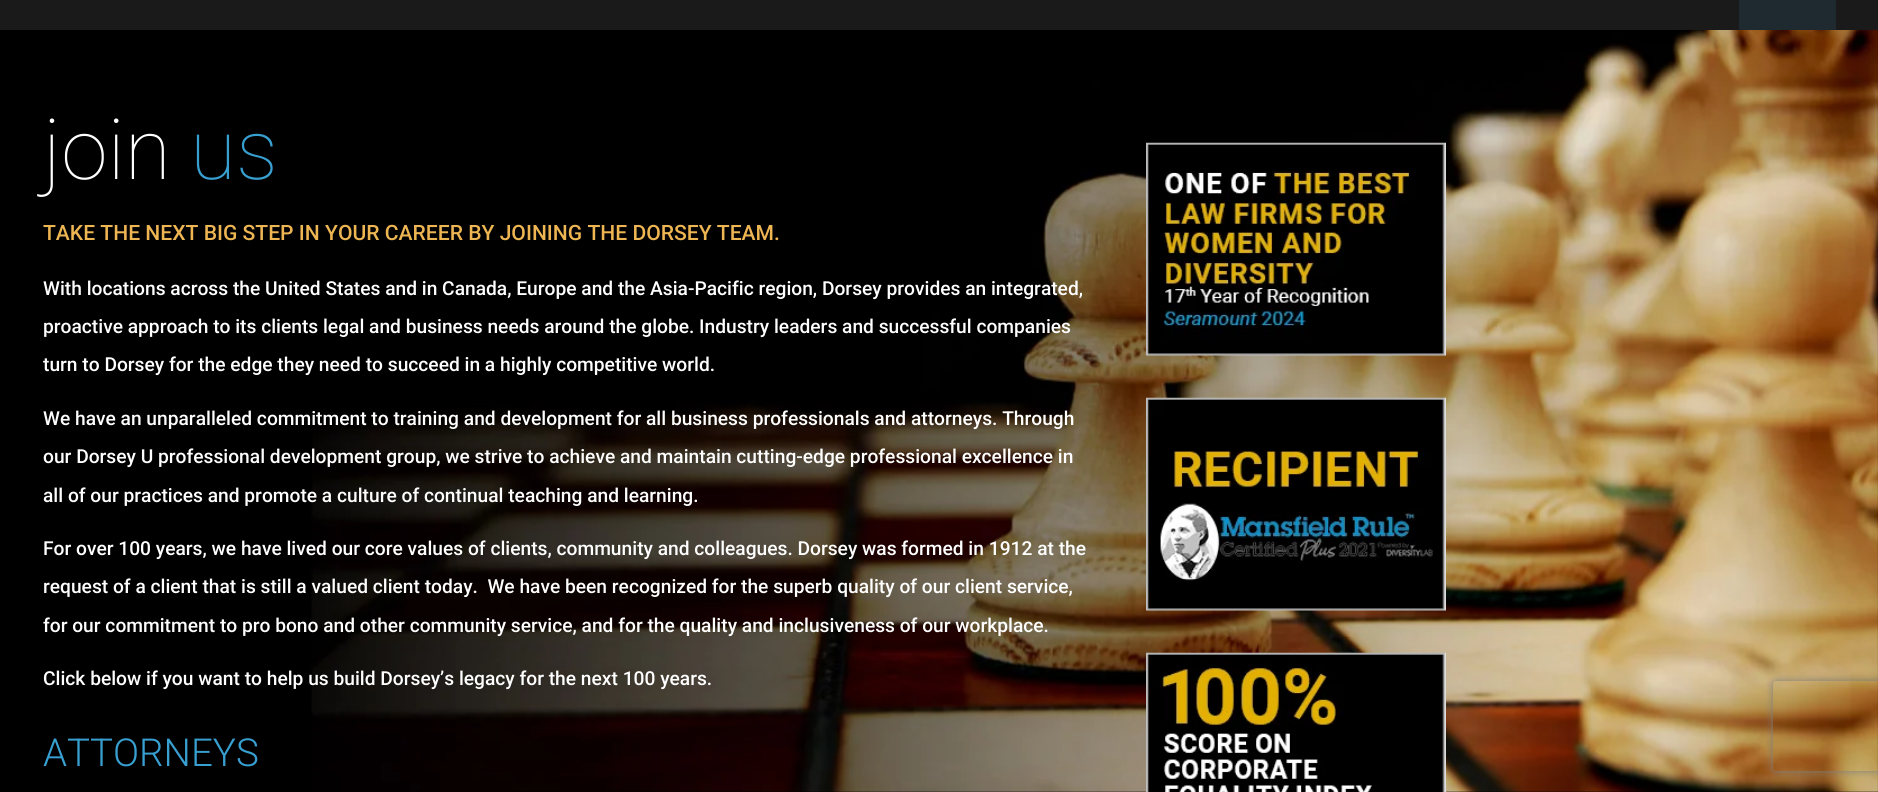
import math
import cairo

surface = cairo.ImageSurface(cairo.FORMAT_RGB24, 1878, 792)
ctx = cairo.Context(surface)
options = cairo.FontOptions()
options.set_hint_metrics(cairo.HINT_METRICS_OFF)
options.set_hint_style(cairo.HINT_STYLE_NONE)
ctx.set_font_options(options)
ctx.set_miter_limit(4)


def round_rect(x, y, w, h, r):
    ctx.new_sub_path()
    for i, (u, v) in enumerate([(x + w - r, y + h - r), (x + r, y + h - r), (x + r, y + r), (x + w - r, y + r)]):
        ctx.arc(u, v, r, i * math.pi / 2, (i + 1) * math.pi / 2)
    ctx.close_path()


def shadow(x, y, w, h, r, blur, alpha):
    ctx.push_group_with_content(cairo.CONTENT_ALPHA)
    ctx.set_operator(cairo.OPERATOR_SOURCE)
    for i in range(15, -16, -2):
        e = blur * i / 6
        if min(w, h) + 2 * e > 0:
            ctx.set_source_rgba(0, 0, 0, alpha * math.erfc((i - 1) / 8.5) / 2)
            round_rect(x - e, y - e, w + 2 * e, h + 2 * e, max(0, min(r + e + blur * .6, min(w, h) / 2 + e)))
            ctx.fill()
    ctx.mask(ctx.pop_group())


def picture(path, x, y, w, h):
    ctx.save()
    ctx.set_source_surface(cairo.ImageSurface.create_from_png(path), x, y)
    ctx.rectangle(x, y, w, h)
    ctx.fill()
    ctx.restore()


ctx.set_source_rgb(0, 0, 0)
ctx.paint()
picture("img1.png", 311, 30, 1567, 762)
ctx.set_source_rgb(0.102, 0.102, 0.102)
ctx.rectangle(0, 0, 1878, 30)
ctx.fill()
ctx.set_source_rgb(0.122, 0.165, 0.188)
ctx.rectangle(1739, 0, 97, 30)
ctx.fill()
ctx.select_font_face("Roboto Thin")
ctx.set_font_size(84)
ctx.set_source_rgb(1, 1, 1)
ctx.move_to(43, 179)
ctx.show_text("join")
ctx.set_source_rgb(0.22, 0.627, 0.82)
ctx.move_to(190, 179)
ctx.show_text("us")
ctx.select_font_face("Roboto Medium")
ctx.set_font_size(21.1)
ctx.set_source_rgb(0.933, 0.71, 0.325)
ctx.move_to(43, 240)
ctx.show_text("TAKE THE NEXT BIG STEP IN YOUR CAREER BY JOINING THE DORSEY TEAM.")
ctx.set_font_size(19.2)
ctx.set_source_rgb(1, 1, 1)
ctx.move_to(43, 295)
ctx.show_text("With locations across the United States and in Canada, Europe and the Asia-Pacific region, Dorsey provides an integrated,")
ctx.move_to(43, 333)
ctx.show_text("proactive approach to its clients legal and business needs around the globe. Industry leaders and successful companies")
ctx.move_to(43, 371)
ctx.show_text("turn to Dorsey for the edge they need to succeed in a highly competitive world.")
ctx.move_to(43, 425)
ctx.show_text("We have an unparalleled commitment to training and development for all business professionals and attorneys. Through")
ctx.move_to(43, 463)
ctx.show_text("our Dorsey U professional development group, we strive to achieve and maintain cutting-edge professional excellence in")
ctx.move_to(43, 502)
ctx.show_text("all of our practices and promote a culture of continual teaching and learning.")
ctx.move_to(43, 555)
ctx.show_text("For over 100 years, we have lived our core values of clients, community and colleagues. Dorsey was formed in 1912 at the")
ctx.move_to(43, 593)
ctx.show_text("request of a client that is still a valued client today.  We have been recognized for the superb quality of our client service,")
ctx.move_to(43, 632)
ctx.show_text("for our commitment to pro bono and other community service, and for the quality and inclusiveness of our workplace.")
ctx.move_to(43, 685)
ctx.show_text("Click below if you want to help us build Dorsey’s legacy for the next 100 years.")
ctx.select_font_face("Roboto Light")
ctx.set_font_size(38.5)
ctx.set_source_rgb(0.22, 0.627, 0.82)
ctx.move_to(43, 766)
ctx.show_text("ATTORNEYS")
picture("img2.png", 1146, 142, 300, 214)
picture("img3.png", 1146, 397, 300, 214)
picture("img4.png", 1146, 652, 300, 140)
ctx.save()
ctx.set_fill_rule(cairo.FILL_RULE_EVEN_ODD)
ctx.new_path()
ctx.move_to(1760, 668)
ctx.line_to(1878, 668)
ctx.line_to(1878, 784)
ctx.line_to(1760, 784)
ctx.close_path()
ctx.move_to(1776, 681)
ctx.line_to(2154, 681)
ctx.curve_to(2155.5, 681, 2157, 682.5, 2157, 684)
ctx.line_to(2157, 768)
ctx.curve_to(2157, 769.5, 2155.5, 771, 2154, 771)
ctx.line_to(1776, 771)
ctx.curve_to(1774.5, 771, 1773, 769.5, 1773, 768)
ctx.line_to(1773, 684)
ctx.curve_to(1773, 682.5, 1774.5, 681, 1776, 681)
ctx.close_path()
ctx.clip()
ctx.set_source_rgb(0.502, 0.502, 0.502)
shadow(1773, 681, 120, 90, 3, 4, 1)
ctx.restore()
surface.write_to_png("page.png")
